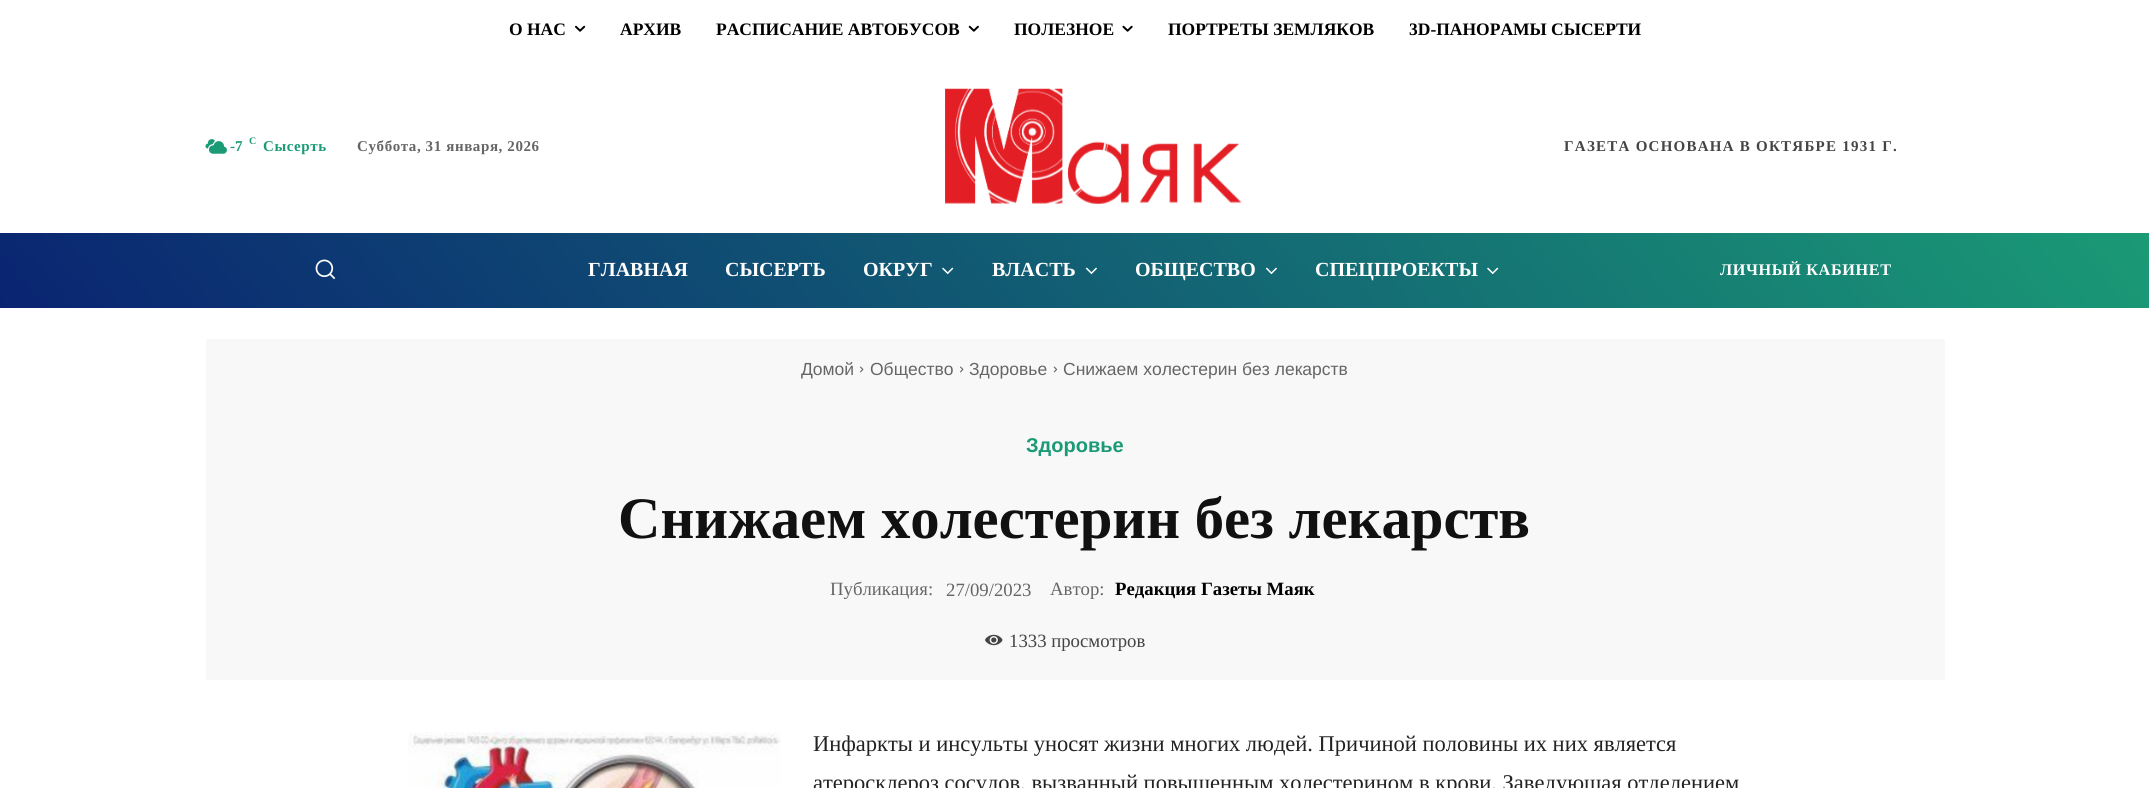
import math
import cairo

surface = cairo.ImageSurface(cairo.FORMAT_RGB24, 2149, 788)
ctx = cairo.Context(surface)
options = cairo.FontOptions()
options.set_hint_metrics(cairo.HINT_METRICS_OFF)
options.set_hint_style(cairo.HINT_STYLE_NONE)
ctx.set_font_options(options)
ctx.set_miter_limit(4)


def spaced_text(x, y, s, letter, word):
    ctx.move_to(x, y)
    for ch in s:
        ctx.show_text(ch)
        ctx.rel_move_to(letter + word * (ch == ' '), 0)


def picture(path, x, y, w, h):
    ctx.save()
    ctx.set_source_surface(cairo.ImageSurface.create_from_png(path), x, y)
    ctx.rectangle(x, y, w, h)
    ctx.fill()
    ctx.restore()


ctx.set_source_rgb(1, 1, 1)
ctx.paint()
ctx.select_font_face("Liberation Serif", cairo.FONT_SLANT_NORMAL, cairo.FONT_WEIGHT_BOLD)
ctx.set_font_size(17.5)
ctx.set_source_rgb(0, 0, 0)
ctx.move_to(509, 35)
ctx.show_text("О НАС")
picture("img1.png", 575, 25, 11, 7)
ctx.move_to(620, 35)
ctx.show_text("АРХИВ")
ctx.move_to(716, 35)
ctx.show_text("РАСПИСАНИЕ АВТОБУСОВ")
picture("img2.png", 968, 25, 11, 7)
ctx.move_to(1014, 35)
ctx.show_text("ПОЛЕЗНОЕ")
picture("img3.png", 1122, 25, 11, 7)
ctx.move_to(1168, 35)
ctx.show_text("ПОРТРЕТЫ ЗЕМЛЯКОВ")
ctx.move_to(1409, 35)
ctx.show_text("3D-ПАНОРАМЫ СЫСЕРТИ")
picture("img4.png", 205, 139, 22, 15)
ctx.set_font_size(15)
ctx.set_source_rgb(0.102, 0.604, 0.459)
ctx.move_to(230, 151)
ctx.show_text("-7")
ctx.set_font_size(10)
spaced_text(249, 144, "C", 0.6, 0)
ctx.set_font_size(15)
spaced_text(263, 151, "Сысерть", 0.6, 0)
ctx.set_source_rgb(0.4, 0.4, 0.4)
spaced_text(357, 151, "Суббота, 31 января, 2026", 0.6, 0)
picture("img5.png", 945, 88, 297, 116)
ctx.set_source_rgb(0.267, 0.267, 0.267)
spaced_text(1564, 151, "ГАЗЕТА ОСНОВАНА В ОКТЯБРЕ 1931 Г.", 1.25, 0)
gradient = cairo.LinearGradient(426, 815, 1724, -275)
gradient.add_color_stop_rgba(0, 0.039, 0.141, 0.447, 1)
gradient.add_color_stop_rgba(1, 0.102, 0.604, 0.459, 1)
ctx.set_source(gradient)
ctx.rectangle(0, 233, 2149, 75)
ctx.fill()
picture("img6.png", 315, 259, 21, 21)
ctx.set_font_size(20)
ctx.set_source_rgb(1, 1, 1)
ctx.move_to(588, 276)
ctx.show_text("ГЛАВНАЯ")
ctx.move_to(725, 276)
ctx.show_text("СЫСЕРТЬ")
ctx.move_to(863, 276)
ctx.show_text("ОКРУГ")
picture("img7.png", 942, 267, 12, 8)
ctx.move_to(992, 276)
ctx.show_text("ВЛАСТЬ")
picture("img8.png", 1085, 267, 12, 8)
ctx.move_to(1135, 276)
ctx.show_text("ОБЩЕСТВО")
picture("img9.png", 1265, 267, 12, 8)
ctx.move_to(1315, 276)
ctx.show_text("СПЕЦПРОЕКТЫ")
picture("img10.png", 1487, 267, 12, 8)
ctx.set_font_size(16.25)
spaced_text(1720, 275, "ЛИЧНЫЙ КАБИНЕТ", 0.6, 0)
ctx.set_source_rgb(0.969, 0.969, 0.969)
ctx.rectangle(206, 339, 1739, 341)
ctx.fill()
ctx.select_font_face("Liberation Sans")
ctx.set_font_size(17.5)
ctx.set_source_rgb(0.4, 0.4, 0.4)
ctx.move_to(801, 375)
ctx.show_text("Домой")
picture("img11.png", 860, 366, 4, 7)
ctx.move_to(870, 375)
ctx.show_text("Общество")
picture("img11.png", 960, 366, 4, 7)
ctx.move_to(969, 375)
ctx.show_text("Здоровье")
picture("img12.png", 1053, 366, 5, 7)
ctx.move_to(1063, 375)
ctx.show_text("Снижаем холестерин без лекарств")
ctx.select_font_face("Liberation Sans", cairo.FONT_SLANT_NORMAL, cairo.FONT_WEIGHT_BOLD)
ctx.set_font_size(20)
ctx.set_source_rgb(0.102, 0.604, 0.459)
ctx.move_to(1026, 452)
ctx.show_text("Здоровье")
ctx.select_font_face("Liberation Serif", cairo.FONT_SLANT_NORMAL, cairo.FONT_WEIGHT_BOLD)
ctx.set_font_size(58.75)
ctx.set_source_rgb(0.067, 0.067, 0.067)
ctx.move_to(618, 538)
ctx.show_text("Снижаем холестерин без лекарств")
ctx.select_font_face("Liberation Serif")
ctx.set_font_size(18.75)
ctx.set_source_rgb(0.4, 0.4, 0.4)
ctx.move_to(830, 595)
ctx.show_text("Публикация:")
ctx.move_to(946, 596)
ctx.show_text("27/09/2023")
ctx.move_to(1050, 595)
ctx.show_text("Автор:")
ctx.select_font_face("Liberation Serif", cairo.FONT_SLANT_NORMAL, cairo.FONT_WEIGHT_BOLD)
ctx.set_source_rgb(0, 0, 0)
ctx.move_to(1115, 595)
ctx.show_text("Редакция Газеты Маяк")
picture("img13.png", 985, 634, 18, 12)
ctx.select_font_face("Liberation Serif")
ctx.set_source_rgb(0.267, 0.267, 0.267)
ctx.move_to(1009, 647)
ctx.show_text("1333 просмотров")
picture("img14.png", 408, 732, 373, 56)
ctx.set_font_size(22.5)
ctx.set_source_rgb(0.133, 0.133, 0.133)
ctx.move_to(813, 751)
ctx.show_text("Инфаркты и инсульты уносят жизни многих людей. Причиной половины их них является")
ctx.move_to(813, 790)
ctx.show_text("атеросклероз сосудов, вызванный повышенным холестерином в крови. Заведующая отделением")
surface.write_to_png("page.png")
